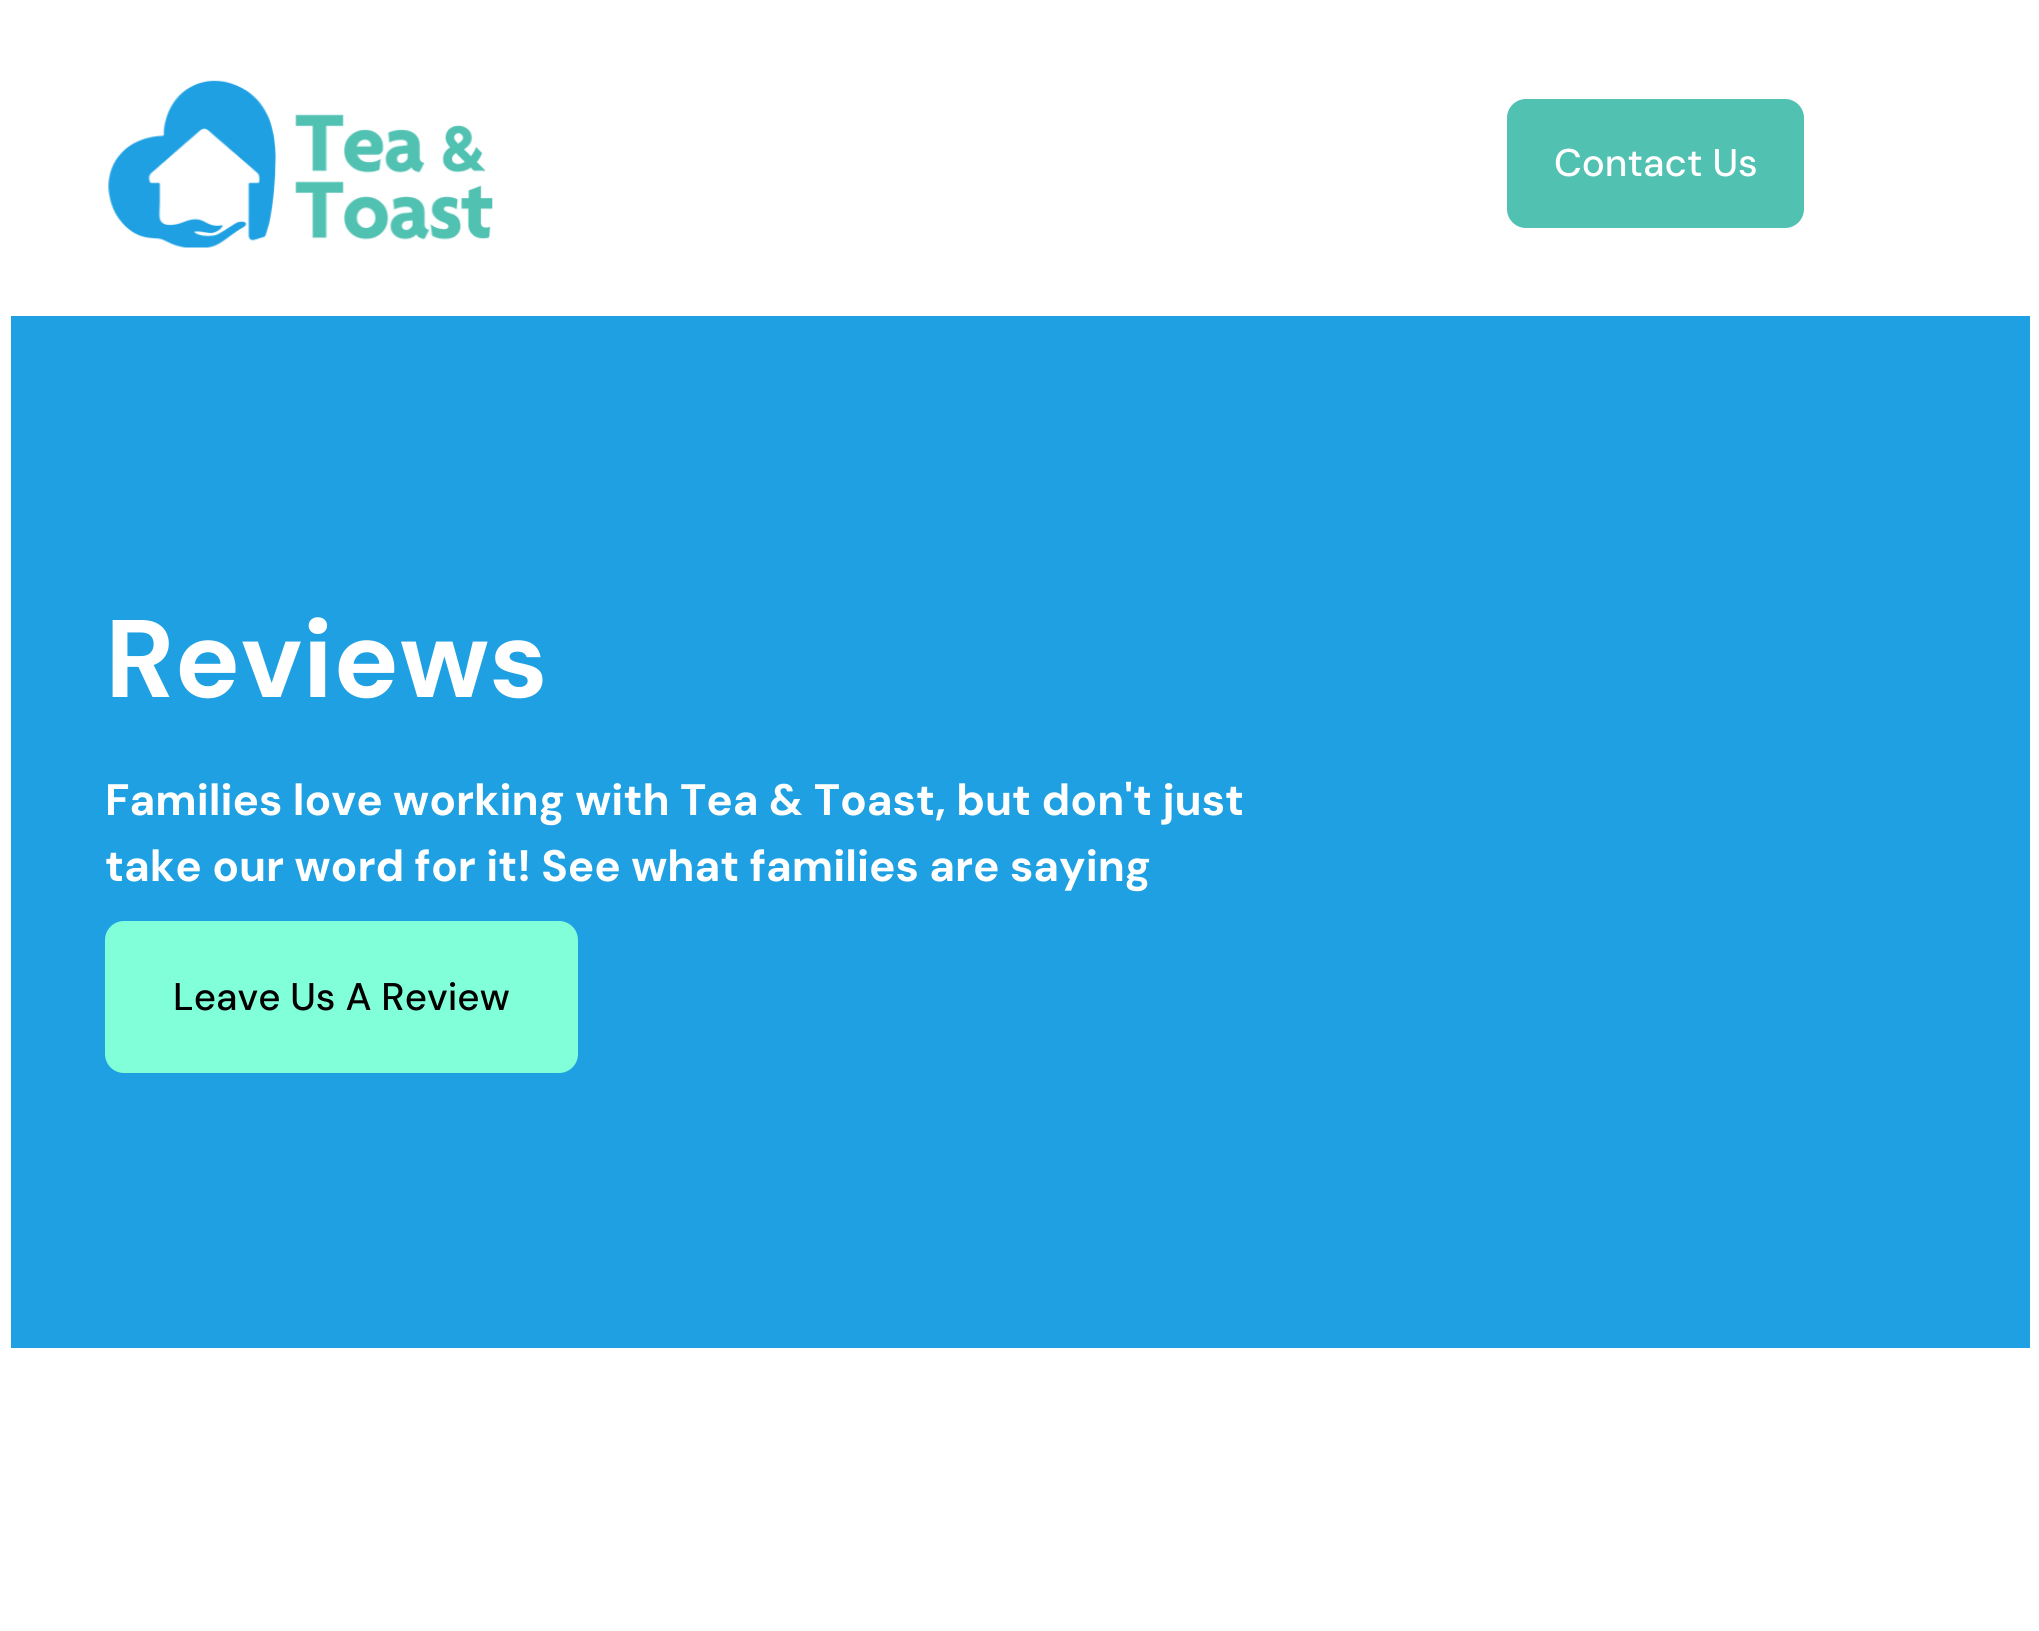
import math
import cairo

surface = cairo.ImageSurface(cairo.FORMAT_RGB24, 2039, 1631)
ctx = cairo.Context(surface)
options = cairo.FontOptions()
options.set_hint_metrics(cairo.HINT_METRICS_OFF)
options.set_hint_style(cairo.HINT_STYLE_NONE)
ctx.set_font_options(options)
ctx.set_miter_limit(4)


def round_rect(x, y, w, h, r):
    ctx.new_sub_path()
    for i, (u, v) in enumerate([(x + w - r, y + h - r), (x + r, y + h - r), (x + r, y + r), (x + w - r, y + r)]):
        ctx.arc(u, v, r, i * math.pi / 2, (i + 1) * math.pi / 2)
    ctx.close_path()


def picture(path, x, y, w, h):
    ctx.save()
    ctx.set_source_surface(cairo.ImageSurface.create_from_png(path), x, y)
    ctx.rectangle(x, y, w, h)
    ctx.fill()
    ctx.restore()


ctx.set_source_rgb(1, 1, 1)
ctx.paint()
picture("img1.png", 108, 80, 385, 168)
ctx.set_source_rgb(0.318, 0.757, 0.694)
round_rect(1507, 99, 297, 129, 19)
ctx.fill()
ctx.select_font_face("DM Sans Medium")
ctx.set_font_size(38.5)
ctx.set_source_rgb(1, 1, 1)
ctx.move_to(1554, 176)
ctx.show_text("Contact Us")
ctx.set_source_rgb(0.118, 0.627, 0.886)
ctx.rectangle(11, 316, 2019, 1032)
ctx.fill()
ctx.select_font_face("DM Sans", cairo.FONT_SLANT_NORMAL, cairo.FONT_WEIGHT_BOLD)
ctx.set_font_size(110)
ctx.set_source_rgb(1, 1, 1)
ctx.move_to(105, 697)
ctx.show_text("Reviews")
ctx.set_font_size(44)
ctx.move_to(105, 815)
ctx.show_text("Families love working with Tea & Toast, but don't just")
ctx.move_to(105, 881)
ctx.show_text("take our word for it! See what families are saying")
ctx.set_source_rgb(0.506, 1, 0.851)
round_rect(105, 921, 473, 152, 19)
ctx.fill()
ctx.select_font_face("DM Sans Medium")
ctx.set_font_size(38.5)
ctx.set_source_rgb(0, 0, 0)
ctx.move_to(173, 1010)
ctx.show_text("Leave Us A Review")
surface.write_to_png("page.png")
